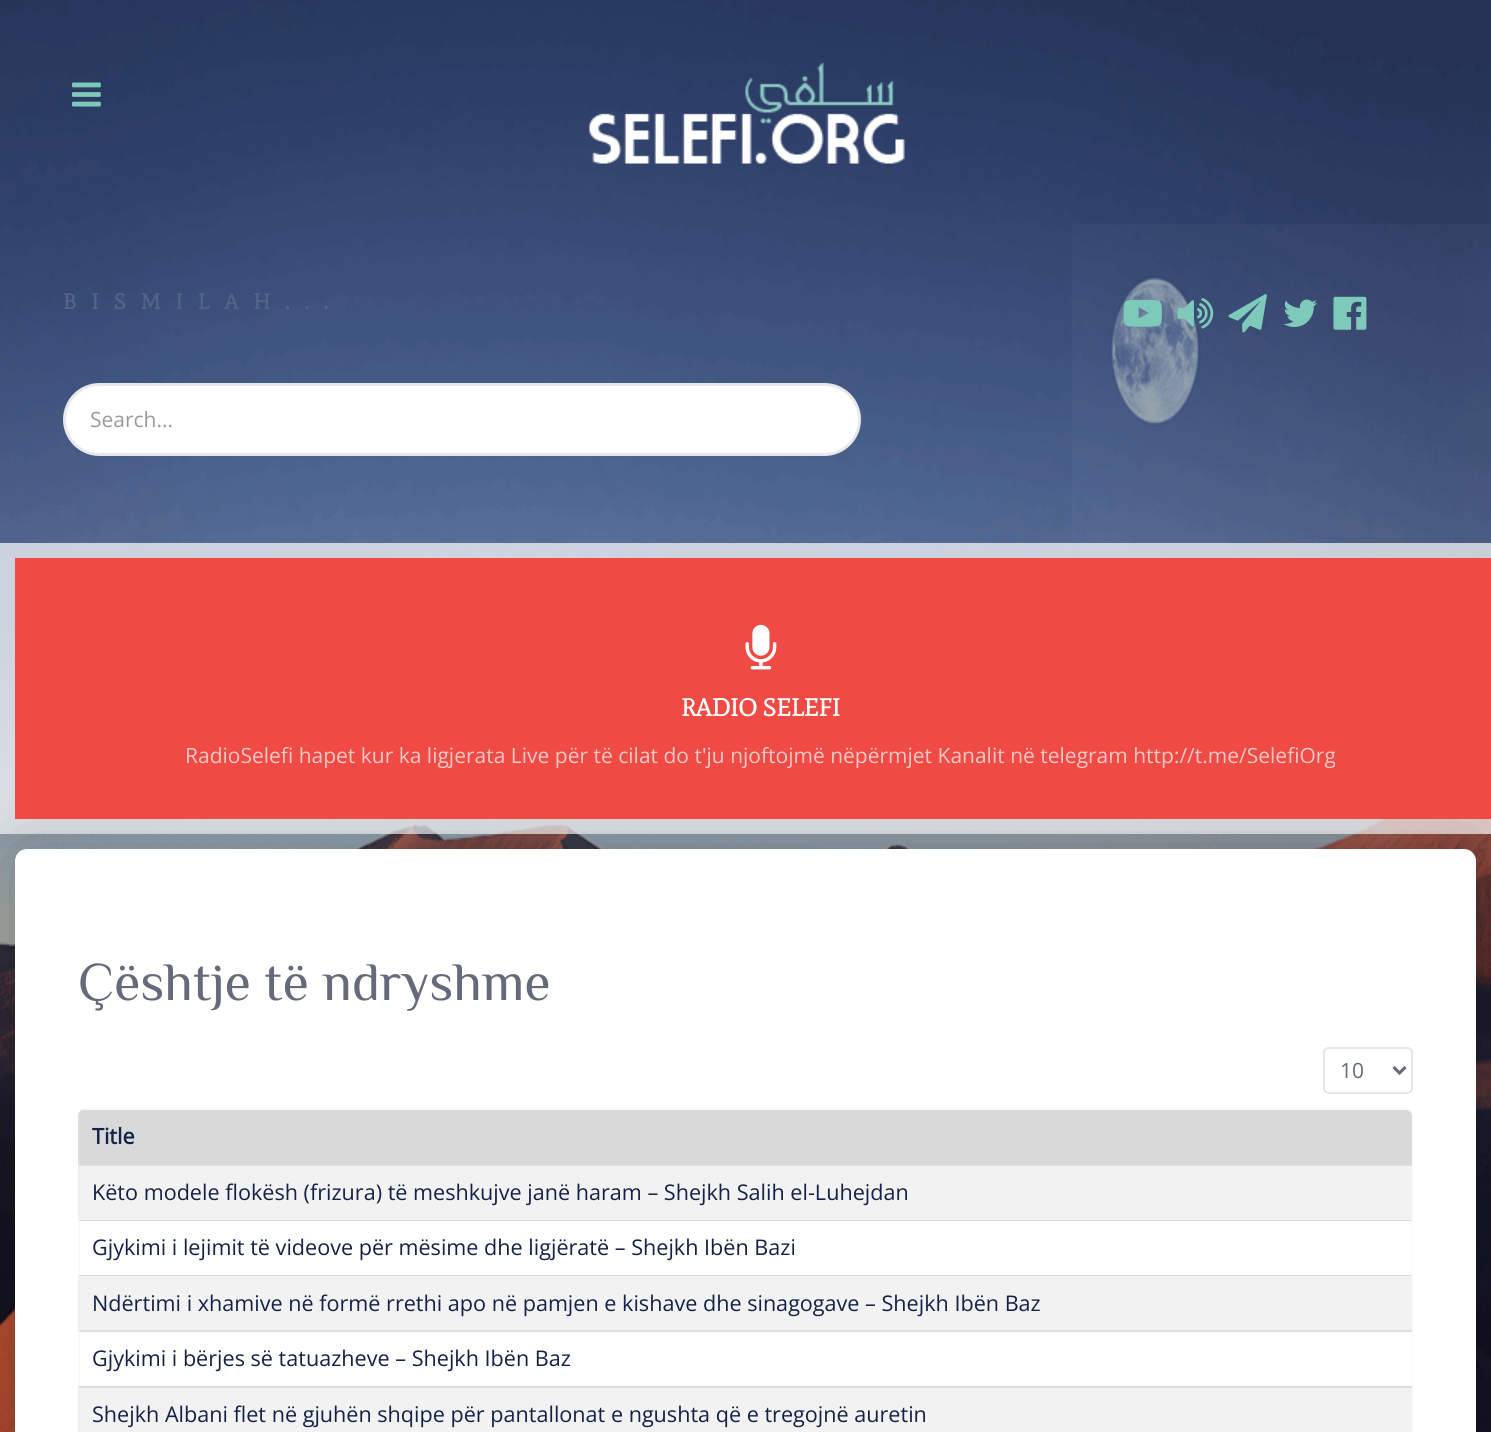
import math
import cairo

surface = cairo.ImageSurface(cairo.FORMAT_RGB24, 1491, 1432)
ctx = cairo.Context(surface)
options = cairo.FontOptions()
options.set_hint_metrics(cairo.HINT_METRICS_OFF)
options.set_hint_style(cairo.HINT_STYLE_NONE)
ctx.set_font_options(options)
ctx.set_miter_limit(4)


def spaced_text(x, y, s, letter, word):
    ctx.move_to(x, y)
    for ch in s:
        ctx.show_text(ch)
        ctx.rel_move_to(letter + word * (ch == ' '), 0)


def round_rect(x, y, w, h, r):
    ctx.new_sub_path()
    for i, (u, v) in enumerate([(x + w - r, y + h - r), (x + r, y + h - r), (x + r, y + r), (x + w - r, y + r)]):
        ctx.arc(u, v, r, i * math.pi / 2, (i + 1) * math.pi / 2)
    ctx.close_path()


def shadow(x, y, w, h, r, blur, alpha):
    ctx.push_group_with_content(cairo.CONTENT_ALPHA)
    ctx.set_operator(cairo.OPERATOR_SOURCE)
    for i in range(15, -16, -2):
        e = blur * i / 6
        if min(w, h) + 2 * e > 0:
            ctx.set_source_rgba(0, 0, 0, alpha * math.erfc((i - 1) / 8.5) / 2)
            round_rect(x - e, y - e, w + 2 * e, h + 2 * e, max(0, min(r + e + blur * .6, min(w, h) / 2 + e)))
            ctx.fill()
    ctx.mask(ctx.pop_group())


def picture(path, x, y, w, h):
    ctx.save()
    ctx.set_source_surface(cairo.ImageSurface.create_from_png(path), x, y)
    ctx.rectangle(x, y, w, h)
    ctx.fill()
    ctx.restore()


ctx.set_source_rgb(0.082, 0.133, 0.282)
ctx.paint()
picture("img2.png", 0, 0, 1491, 1432)
picture("img1.png", 72, 82, 29, 25)
picture("img3.png", 588, 62, 317, 102)
gradient = cairo.LinearGradient(0, 383, 1491, 383)
gradient.add_color_stop_rgba(0, 1, 1, 1, 0)
gradient.add_color_stop_rgba(1, 1, 1, 1, 0.03)
ctx.set_source(gradient)
ctx.rectangle(1072, 224, 419, 319)
ctx.fill()
ctx.select_font_face("Mate SC", cairo.FONT_SLANT_NORMAL, cairo.FONT_WEIGHT_BOLD)
ctx.set_font_size(21.6)
ctx.set_source_rgb(0.337, 0.388, 0.533)
spaced_text(63, 309, "BISMILAH...", 15, 0)
ctx.set_source_rgb(1, 1, 1)
round_rect(64.5, 384.5, 795, 70, 35)
ctx.fill_preserve()
ctx.set_source_rgb(0.906, 0.91, 0.918)
ctx.set_line_width(3)
ctx.stroke()
ctx.select_font_face("Open Sans")
ctx.set_font_size(21)
ctx.set_source_rgb(0.6, 0.6, 0.6)
ctx.move_to(90, 427)
ctx.show_text("Search...")
picture("img4.png", 1123, 299, 39, 28)
picture("img5.png", 1177, 298, 37, 31)
picture("img6.png", 1228, 294, 39, 39)
picture("img7.png", 1283, 299, 34, 28)
picture("img8.png", 1333, 296, 34, 34)
ctx.set_source_rgba(1, 1, 1, 0.7)
ctx.rectangle(0, 543, 1491, 291)
ctx.fill()
ctx.set_source_rgb(0, 0, 0)
shadow(15, 849, 1461, 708, 12, 37.5, 0.2)
ctx.set_source_rgb(0.937, 0.29, 0.267)
ctx.rectangle(15, 558, 1476, 261)
ctx.fill()
picture("img9.png", 745, 624, 32, 46)
ctx.select_font_face("Mate SC", cairo.FONT_SLANT_NORMAL, cairo.FONT_WEIGHT_BOLD)
ctx.set_font_size(24.5)
ctx.set_source_rgb(1, 1, 1)
ctx.move_to(681, 716)
ctx.show_text("RADIO SELEFI")
ctx.select_font_face("Open Sans")
ctx.set_font_size(21)
ctx.set_source_rgb(0.98, 0.788, 0.78)
ctx.move_to(185, 763)
ctx.show_text("RadioSelefi hapet kur ka ligjerata Live për të cilat do t'ju njoftojmë nëpërmjet Kanalit në telegram http://t.me/SelefiOrg")
ctx.set_source_rgb(1, 1, 1)
round_rect(15, 849, 1461, 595, 12)
ctx.fill()
ctx.select_font_face("El Messiri")
ctx.set_font_size(54)
ctx.set_source_rgb(0.396, 0.416, 0.482)
ctx.move_to(78, 1000)
ctx.show_text("Çështje të ndryshme")
round_rect(1324, 1048, 88, 45, 5)
ctx.set_source_rgb(0.902, 0.902, 0.902)
ctx.set_line_width(2)
ctx.stroke()
ctx.new_path()
ctx.move_to(1393.5, 1067)
ctx.line_to(1399.5, 1073)
ctx.line_to(1405.5, 1067)
ctx.set_source_rgb(0.396, 0.416, 0.482)
ctx.set_line_width(3)
ctx.stroke()
ctx.select_font_face("Open Sans")
ctx.set_font_size(21)
ctx.move_to(1340, 1078)
ctx.show_text("10")
ctx.set_source_rgb(0.976, 0.976, 0.98)
ctx.set_fill_rule(cairo.FILL_RULE_EVEN_ODD)
ctx.new_path()
ctx.move_to(84, 1108)
ctx.line_to(1407, 1108)
ctx.curve_to(1410, 1108, 1413, 1111, 1413, 1114)
ctx.line_to(1413, 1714)
ctx.curve_to(1413, 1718, 1410, 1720, 1407, 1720)
ctx.line_to(84, 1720)
ctx.curve_to(81, 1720, 78, 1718, 78, 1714)
ctx.line_to(78, 1114)
ctx.curve_to(78, 1111, 81, 1108, 84, 1108)
ctx.close_path()
ctx.move_to(84, 1110)
ctx.line_to(1407, 1110)
ctx.curve_to(1409, 1110, 1412, 1112, 1412, 1114)
ctx.line_to(1412, 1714)
ctx.curve_to(1412, 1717, 1409, 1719, 1407, 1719)
ctx.line_to(84, 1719)
ctx.curve_to(81, 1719, 78, 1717, 78, 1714)
ctx.line_to(78, 1114)
ctx.curve_to(78, 1112, 81, 1110, 84, 1110)
ctx.close_path()
ctx.fill()
ctx.set_source_rgb(0.851, 0.851, 0.851)
ctx.new_path()
ctx.move_to(84, 1110)
ctx.line_to(1406, 1110)
ctx.curve_to(1409.5, 1110, 1412, 1112.5, 1412, 1116)
ctx.line_to(1412, 1164)
ctx.line_to(78, 1164)
ctx.line_to(78, 1116)
ctx.curve_to(78, 1112.5, 80.5, 1110, 84, 1110)
ctx.close_path()
ctx.fill()
ctx.set_source_rgba(0.906, 0.91, 0.918, 0.25)
ctx.rectangle(78, 1113, 2, 51)
ctx.fill()
ctx.select_font_face("Open Sans", cairo.FONT_SLANT_NORMAL, cairo.FONT_WEIGHT_BOLD)
ctx.set_font_size(21.6)
ctx.set_source_rgb(0.082, 0.133, 0.282)
ctx.move_to(92, 1144)
ctx.show_text("Title")
ctx.set_source_rgb(0.949, 0.949, 0.949)
ctx.rectangle(78, 1164, 1334, 56)
ctx.fill()
ctx.set_source_rgb(0.867, 0.867, 0.867)
ctx.set_fill_rule(cairo.FILL_RULE_WINDING)
ctx.new_path()
ctx.move_to(78, 1164)
ctx.line_to(1412, 1164)
ctx.line_to(1412, 1166)
ctx.line_to(80, 1166)
ctx.close_path()
ctx.fill()
ctx.set_source_rgba(0.906, 0.91, 0.918, 0.25)
ctx.new_path()
ctx.move_to(78, 1220)
ctx.line_to(78, 1164)
ctx.line_to(80, 1166)
ctx.line_to(80, 1220)
ctx.close_path()
ctx.fill()
ctx.select_font_face("Open Sans")
ctx.set_source_rgb(0.082, 0.133, 0.282)
ctx.move_to(92, 1200)
ctx.show_text("Këto modele flokësh (frizura) të meshkujve janë haram – Shejkh Salih el-Luhejdan")
ctx.set_source_rgb(0.867, 0.867, 0.867)
ctx.new_path()
ctx.move_to(78, 1220)
ctx.line_to(1412, 1220)
ctx.line_to(1412, 1221)
ctx.line_to(80, 1221)
ctx.close_path()
ctx.fill()
ctx.set_source_rgba(0.906, 0.91, 0.918, 0.25)
ctx.new_path()
ctx.move_to(78, 1275)
ctx.line_to(78, 1220)
ctx.line_to(80, 1221)
ctx.line_to(80, 1275)
ctx.close_path()
ctx.fill()
ctx.set_source_rgb(0.082, 0.133, 0.282)
ctx.move_to(92, 1255)
ctx.show_text("Gjykimi i lejimit të videove për mësime dhe ligjëratë – Shejkh Ibën Bazi")
ctx.set_source_rgb(0.949, 0.949, 0.949)
ctx.rectangle(78, 1275, 1334, 56)
ctx.fill()
ctx.set_source_rgb(0.867, 0.867, 0.867)
ctx.new_path()
ctx.move_to(78, 1275)
ctx.line_to(1412, 1275)
ctx.line_to(1412, 1276)
ctx.line_to(80, 1276)
ctx.close_path()
ctx.fill()
ctx.set_source_rgba(0.906, 0.91, 0.918, 0.25)
ctx.new_path()
ctx.move_to(78, 1330)
ctx.line_to(78, 1275)
ctx.line_to(80, 1276)
ctx.line_to(80, 1330)
ctx.close_path()
ctx.fill()
ctx.set_source_rgb(0.082, 0.133, 0.282)
ctx.move_to(92, 1311)
ctx.show_text("Ndërtimi i xhamive në formë rrethi apo në pamjen e kishave dhe sinagogave – Shejkh Ibën Baz")
ctx.set_source_rgb(0.867, 0.867, 0.867)
ctx.new_path()
ctx.move_to(78, 1330)
ctx.line_to(1412, 1330)
ctx.line_to(1412, 1332)
ctx.line_to(80, 1332)
ctx.close_path()
ctx.fill()
ctx.set_source_rgba(0.906, 0.91, 0.918, 0.25)
ctx.new_path()
ctx.move_to(78, 1386)
ctx.line_to(78, 1330)
ctx.line_to(80, 1332)
ctx.line_to(80, 1386)
ctx.close_path()
ctx.fill()
ctx.set_source_rgb(0.082, 0.133, 0.282)
ctx.move_to(92, 1366)
ctx.show_text("Gjykimi i bërjes së tatuazheve – Shejkh Ibën Baz")
ctx.set_source_rgb(0.949, 0.949, 0.949)
ctx.rectangle(78, 1386, 1334, 46)
ctx.fill()
ctx.set_source_rgb(0.867, 0.867, 0.867)
ctx.new_path()
ctx.move_to(78, 1386)
ctx.line_to(1412, 1386)
ctx.line_to(1412, 1388)
ctx.line_to(80, 1388)
ctx.close_path()
ctx.fill()
ctx.set_source_rgba(0.906, 0.91, 0.918, 0.25)
ctx.new_path()
ctx.move_to(78, 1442)
ctx.line_to(78, 1386)
ctx.line_to(80, 1388)
ctx.line_to(80, 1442)
ctx.close_path()
ctx.fill()
ctx.set_source_rgb(0.082, 0.133, 0.282)
ctx.move_to(92, 1422)
ctx.show_text("Shejkh Albani flet në gjuhën shqipe për pantallonat e ngushta që e tregojnë auretin")
surface.write_to_png("page.png")
